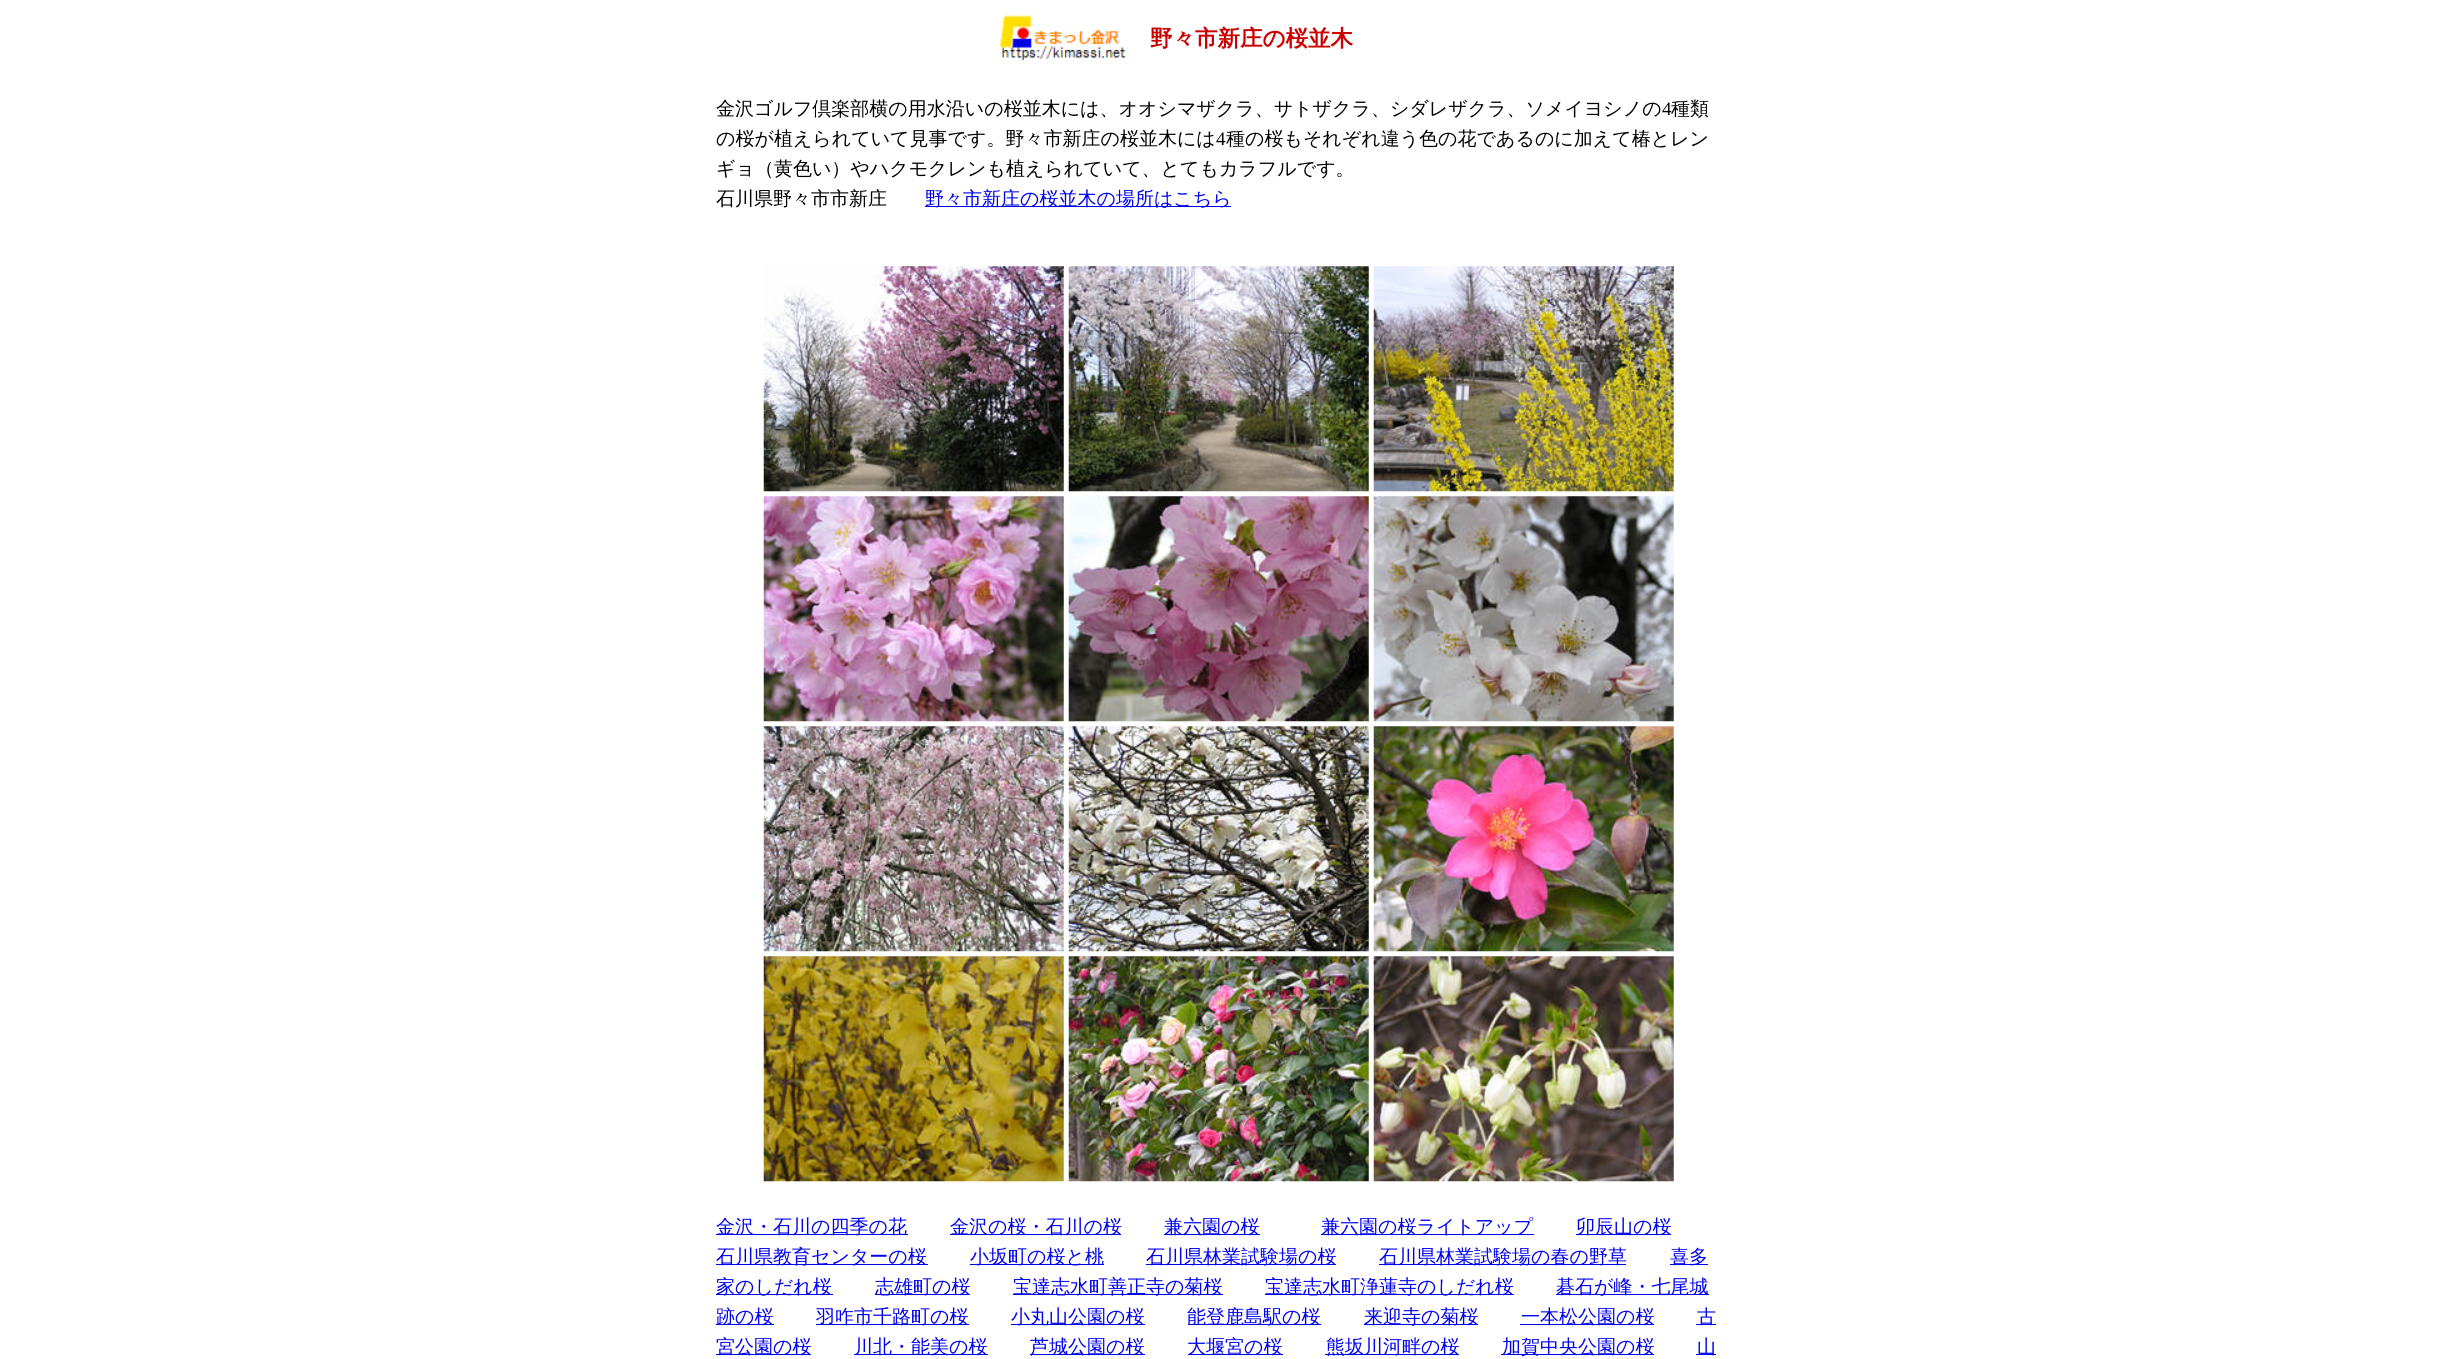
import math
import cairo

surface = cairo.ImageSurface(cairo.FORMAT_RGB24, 2437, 1359)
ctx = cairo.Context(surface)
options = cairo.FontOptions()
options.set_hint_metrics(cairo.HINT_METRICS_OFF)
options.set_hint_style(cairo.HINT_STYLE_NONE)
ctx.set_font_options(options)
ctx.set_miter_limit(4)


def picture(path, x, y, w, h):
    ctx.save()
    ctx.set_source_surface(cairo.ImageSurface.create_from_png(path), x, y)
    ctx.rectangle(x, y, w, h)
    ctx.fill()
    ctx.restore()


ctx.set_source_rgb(1, 1, 1)
ctx.paint()
picture("img1.png", 999, 14, 127, 47)
ctx.select_font_face("WenQuanYi Zen Hei", cairo.FONT_SLANT_NORMAL, cairo.FONT_WEIGHT_BOLD)
ctx.set_font_size(22.5)
ctx.set_source_rgb(0.8, 0, 0)
ctx.move_to(1150, 46)
ctx.show_text("野々市新庄の桜並木")
ctx.select_font_face("WenQuanYi Zen Hei Medium")
ctx.set_font_size(19)
ctx.set_source_rgb(0, 0, 0)
ctx.move_to(716, 115)
ctx.show_text("金沢ゴルフ倶楽部横の用水沿いの桜並木には、オオシマザクラ、サトザクラ、シダレザクラ、ソメイヨシノの")
ctx.select_font_face("Liberation Serif")
ctx.move_to(1662, 115)
ctx.show_text("4")
ctx.select_font_face("WenQuanYi Zen Hei Medium")
ctx.move_to(1671, 115)
ctx.show_text("種類")
ctx.move_to(716, 145)
ctx.show_text("の桜が植えられていて見事です。野々市新庄の桜並木には")
ctx.select_font_face("Liberation Serif")
ctx.move_to(1216, 145)
ctx.show_text("4")
ctx.select_font_face("WenQuanYi Zen Hei Medium")
ctx.move_to(1226, 145)
ctx.show_text("種の桜もそれぞれ違う色の花であるのに加えて椿とレン")
ctx.move_to(716, 175)
ctx.show_text("ギョ（黄色い）やハクモクレンも植えられていて、とてもカラフルです。")
ctx.move_to(716, 205)
ctx.show_text("石川県野々市市新庄")
ctx.set_source_rgb(0, 0, 0.933)
ctx.rectangle(925, 206, 306, 1)
ctx.fill()
ctx.move_to(925, 205)
ctx.show_text("野々市新庄の桜並木の場所はこちら")
picture("img2.png", 763, 266, 301, 226)
picture("img3.png", 1068, 266, 301, 226)
picture("img4.png", 1373, 266, 301, 226)
picture("img5.png", 763, 496, 301, 226)
picture("img6.png", 1068, 496, 301, 226)
picture("img7.png", 1373, 496, 301, 226)
picture("img8.png", 763, 726, 301, 226)
picture("img9.png", 1068, 726, 301, 226)
picture("img10.png", 1373, 726, 301, 226)
picture("img11.png", 763, 956, 301, 226)
picture("img12.png", 1068, 956, 301, 226)
picture("img13.png", 1373, 956, 301, 226)
ctx.rectangle(716, 1234, 192, 1)
ctx.fill()
ctx.move_to(716, 1233)
ctx.show_text("金沢・石川の四季の花")
ctx.rectangle(950, 1234, 171, 1)
ctx.fill()
ctx.move_to(950, 1233)
ctx.show_text("金沢の桜・石川の桜")
ctx.rectangle(1164, 1234, 96, 1)
ctx.fill()
ctx.move_to(1164, 1233)
ctx.show_text("兼六園の桜")
ctx.rectangle(1321, 1234, 213, 1)
ctx.fill()
ctx.move_to(1321, 1233)
ctx.show_text("兼六園の桜ライトアップ")
ctx.rectangle(1576, 1234, 95, 1)
ctx.fill()
ctx.move_to(1576, 1233)
ctx.show_text("卯辰山の桜")
ctx.rectangle(716, 1264, 212, 1)
ctx.fill()
ctx.move_to(716, 1263)
ctx.show_text("石川県教育センターの桜")
ctx.rectangle(970, 1264, 134, 1)
ctx.fill()
ctx.move_to(970, 1263)
ctx.show_text("小坂町の桜と桃")
ctx.rectangle(1146, 1264, 190, 1)
ctx.fill()
ctx.move_to(1146, 1263)
ctx.show_text("石川県林業試験場の桜")
ctx.rectangle(1379, 1264, 247, 1)
ctx.fill()
ctx.move_to(1379, 1263)
ctx.show_text("石川県林業試験場の春の野草")
ctx.rectangle(1670, 1264, 38, 1)
ctx.fill()
ctx.move_to(1670, 1263)
ctx.show_text("喜多")
ctx.rectangle(716, 1294, 117, 1)
ctx.fill()
ctx.move_to(716, 1293)
ctx.show_text("家のしだれ桜")
ctx.rectangle(875, 1294, 95, 1)
ctx.fill()
ctx.move_to(875, 1293)
ctx.show_text("志雄町の桜")
ctx.rectangle(1013, 1294, 210, 1)
ctx.fill()
ctx.move_to(1013, 1293)
ctx.show_text("宝達志水町善正寺の菊桜")
ctx.rectangle(1265, 1294, 249, 1)
ctx.fill()
ctx.move_to(1265, 1293)
ctx.show_text("宝達志水町浄蓮寺のしだれ桜")
ctx.rectangle(1556, 1294, 153, 1)
ctx.fill()
ctx.move_to(1556, 1293)
ctx.show_text("碁石が峰・七尾城")
ctx.rectangle(716, 1324, 58, 1)
ctx.fill()
ctx.move_to(716, 1323)
ctx.show_text("跡の桜")
ctx.rectangle(816, 1324, 153, 1)
ctx.fill()
ctx.move_to(816, 1323)
ctx.show_text("羽咋市千路町の桜")
ctx.rectangle(1011, 1324, 134, 1)
ctx.fill()
ctx.move_to(1011, 1323)
ctx.show_text("小丸山公園の桜")
ctx.rectangle(1188, 1324, 133, 1)
ctx.fill()
ctx.move_to(1187, 1323)
ctx.show_text("能登鹿島駅の桜")
ctx.rectangle(1364, 1324, 114, 1)
ctx.fill()
ctx.move_to(1364, 1323)
ctx.show_text("来迎寺の菊桜")
ctx.rectangle(1520, 1324, 134, 1)
ctx.fill()
ctx.move_to(1521, 1323)
ctx.show_text("一本松公園の桜")
ctx.rectangle(1696, 1324, 20, 1)
ctx.fill()
ctx.move_to(1697, 1323)
ctx.show_text("古")
ctx.rectangle(716, 1354, 95, 1)
ctx.fill()
ctx.move_to(716, 1353)
ctx.show_text("宮公園の桜")
ctx.rectangle(854, 1354, 134, 1)
ctx.fill()
ctx.move_to(854, 1353)
ctx.show_text("川北・能美の桜")
ctx.rectangle(1030, 1354, 115, 1)
ctx.fill()
ctx.move_to(1030, 1353)
ctx.show_text("芦城公園の桜")
ctx.rectangle(1188, 1354, 95, 1)
ctx.fill()
ctx.move_to(1187, 1353)
ctx.show_text("大堰宮の桜")
ctx.rectangle(1325, 1354, 134, 1)
ctx.fill()
ctx.move_to(1326, 1353)
ctx.show_text("熊坂川河畔の桜")
ctx.rectangle(1501, 1354, 153, 1)
ctx.fill()
ctx.move_to(1502, 1353)
ctx.show_text("加賀中央公園の桜")
ctx.rectangle(1696, 1354, 20, 1)
ctx.fill()
ctx.move_to(1697, 1353)
ctx.show_text("山")
surface.write_to_png("page.png")
